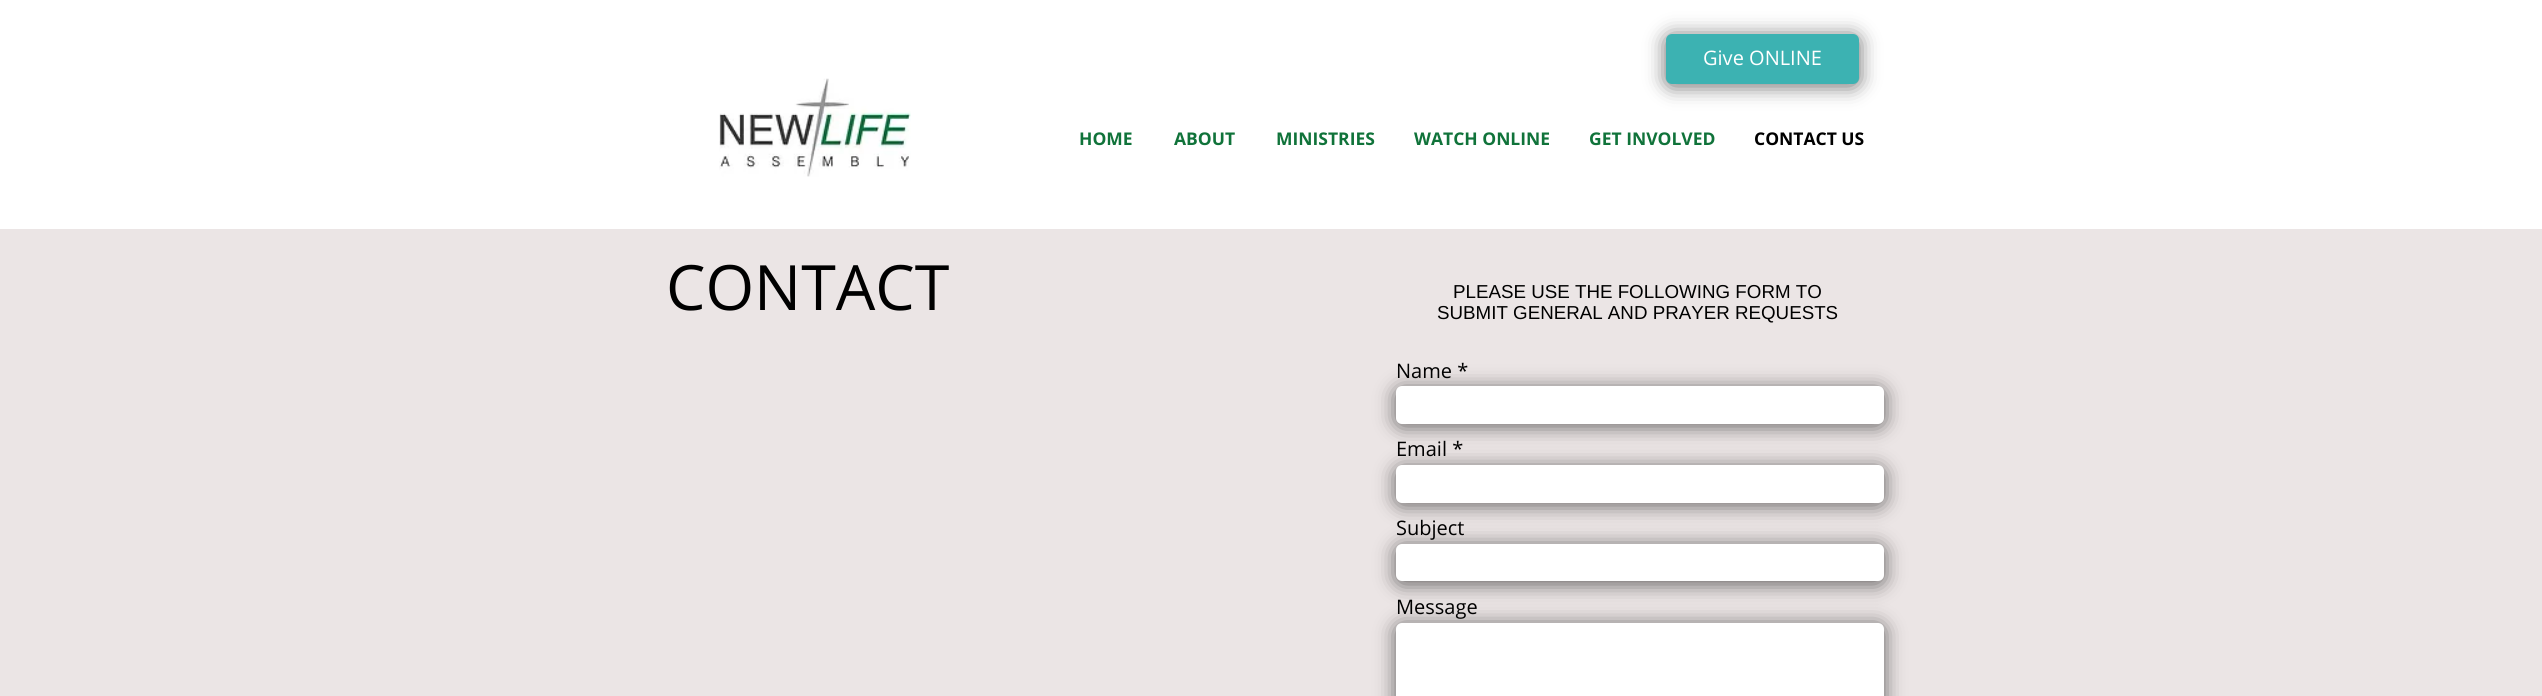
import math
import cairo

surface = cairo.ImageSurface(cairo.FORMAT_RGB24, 2542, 696)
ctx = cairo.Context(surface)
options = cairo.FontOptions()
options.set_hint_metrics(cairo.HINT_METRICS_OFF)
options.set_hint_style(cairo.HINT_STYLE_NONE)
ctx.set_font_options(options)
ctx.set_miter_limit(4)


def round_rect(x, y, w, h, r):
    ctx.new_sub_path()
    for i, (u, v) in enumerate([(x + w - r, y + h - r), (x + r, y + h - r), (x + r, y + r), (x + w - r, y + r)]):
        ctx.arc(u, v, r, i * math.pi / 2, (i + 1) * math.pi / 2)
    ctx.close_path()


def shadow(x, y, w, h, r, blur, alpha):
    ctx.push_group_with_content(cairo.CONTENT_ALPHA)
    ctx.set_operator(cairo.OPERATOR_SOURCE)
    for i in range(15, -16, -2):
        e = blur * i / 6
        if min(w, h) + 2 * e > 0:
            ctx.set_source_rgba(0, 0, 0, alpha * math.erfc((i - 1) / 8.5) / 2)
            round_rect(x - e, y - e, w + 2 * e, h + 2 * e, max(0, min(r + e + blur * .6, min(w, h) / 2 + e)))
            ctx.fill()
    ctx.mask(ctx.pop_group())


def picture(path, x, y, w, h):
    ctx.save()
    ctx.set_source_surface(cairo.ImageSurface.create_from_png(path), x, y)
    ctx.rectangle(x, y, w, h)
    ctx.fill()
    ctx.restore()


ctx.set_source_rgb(0.918, 0.898, 0.898)
ctx.paint()
ctx.set_source_rgb(1, 1, 1)
ctx.rectangle(0, 0, 2542, 229)
ctx.fill()
ctx.set_source_rgb(0, 0, 0)
shadow(1666, 36, 193, 50, 6, 10, 0.6)
ctx.set_source_rgb(0.235, 0.698, 0.698)
round_rect(1666, 34, 193, 50, 6)
ctx.fill()
ctx.select_font_face("Open Sans")
ctx.set_font_size(20)
ctx.set_source_rgb(1, 1, 1)
ctx.move_to(1703, 65)
ctx.show_text("Give ONLINE")
picture("img1.png", 719, 78, 192, 99)
ctx.select_font_face("Open Sans", cairo.FONT_SLANT_NORMAL, cairo.FONT_WEIGHT_BOLD)
ctx.set_font_size(17.5)
ctx.set_source_rgb(0.063, 0.451, 0.227)
ctx.move_to(1079, 145)
ctx.show_text("HOME")
ctx.move_to(1174, 145)
ctx.show_text("ABOUT")
ctx.move_to(1276, 145)
ctx.show_text("MINISTRIES")
ctx.move_to(1414, 145)
ctx.show_text("WATCH ONLINE")
ctx.move_to(1589, 145)
ctx.show_text("GET INVOLVED")
ctx.set_source_rgb(0, 0, 0)
ctx.move_to(1754, 145)
ctx.show_text("CONTACT US")
ctx.select_font_face("Open Sans")
ctx.set_font_size(62.5)
ctx.move_to(666, 310)
ctx.show_text("CONTACT")
ctx.select_font_face("Liberation Sans")
ctx.set_font_size(18.75)
ctx.move_to(1453, 298)
ctx.show_text("PLEASE USE THE FOLLOWING FORM TO")
ctx.move_to(1437, 319)
ctx.show_text("SUBMIT GENERAL AND PRAYER REQUESTS")
ctx.set_source_rgb(0, 0, 0)
shadow(1396, 389, 488, 37, 6, 10, 0.6)
ctx.set_source_rgb(1, 1, 1)
round_rect(1396, 386, 488, 38, 6)
ctx.fill()
ctx.select_font_face("Open Sans")
ctx.set_font_size(20)
ctx.set_source_rgb(0, 0, 0)
ctx.move_to(1396, 378)
ctx.show_text("Name *")
ctx.set_source_rgb(0, 0, 0)
shadow(1396, 468, 488, 37, 6, 10, 0.6)
ctx.set_source_rgb(1, 1, 1)
round_rect(1396, 465, 488, 38, 6)
ctx.fill()
ctx.set_source_rgb(0, 0, 0)
ctx.move_to(1396, 456)
ctx.show_text("Email *")
ctx.set_source_rgb(0, 0, 0)
shadow(1396, 546, 488, 38, 6, 10, 0.6)
ctx.set_source_rgb(1, 1, 1)
round_rect(1396, 544, 488, 37, 6)
ctx.fill()
ctx.set_source_rgb(0, 0, 0)
ctx.move_to(1396, 535)
ctx.show_text("Subject")
ctx.set_source_rgb(0, 0, 0)
shadow(1396, 625, 488, 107, 6, 10, 0.6)
ctx.set_source_rgb(1, 1, 1)
round_rect(1396, 623, 488, 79, 6)
ctx.fill()
ctx.set_source_rgb(0, 0, 0)
ctx.move_to(1396, 614)
ctx.show_text("Message")
surface.write_to_png("page.png")
